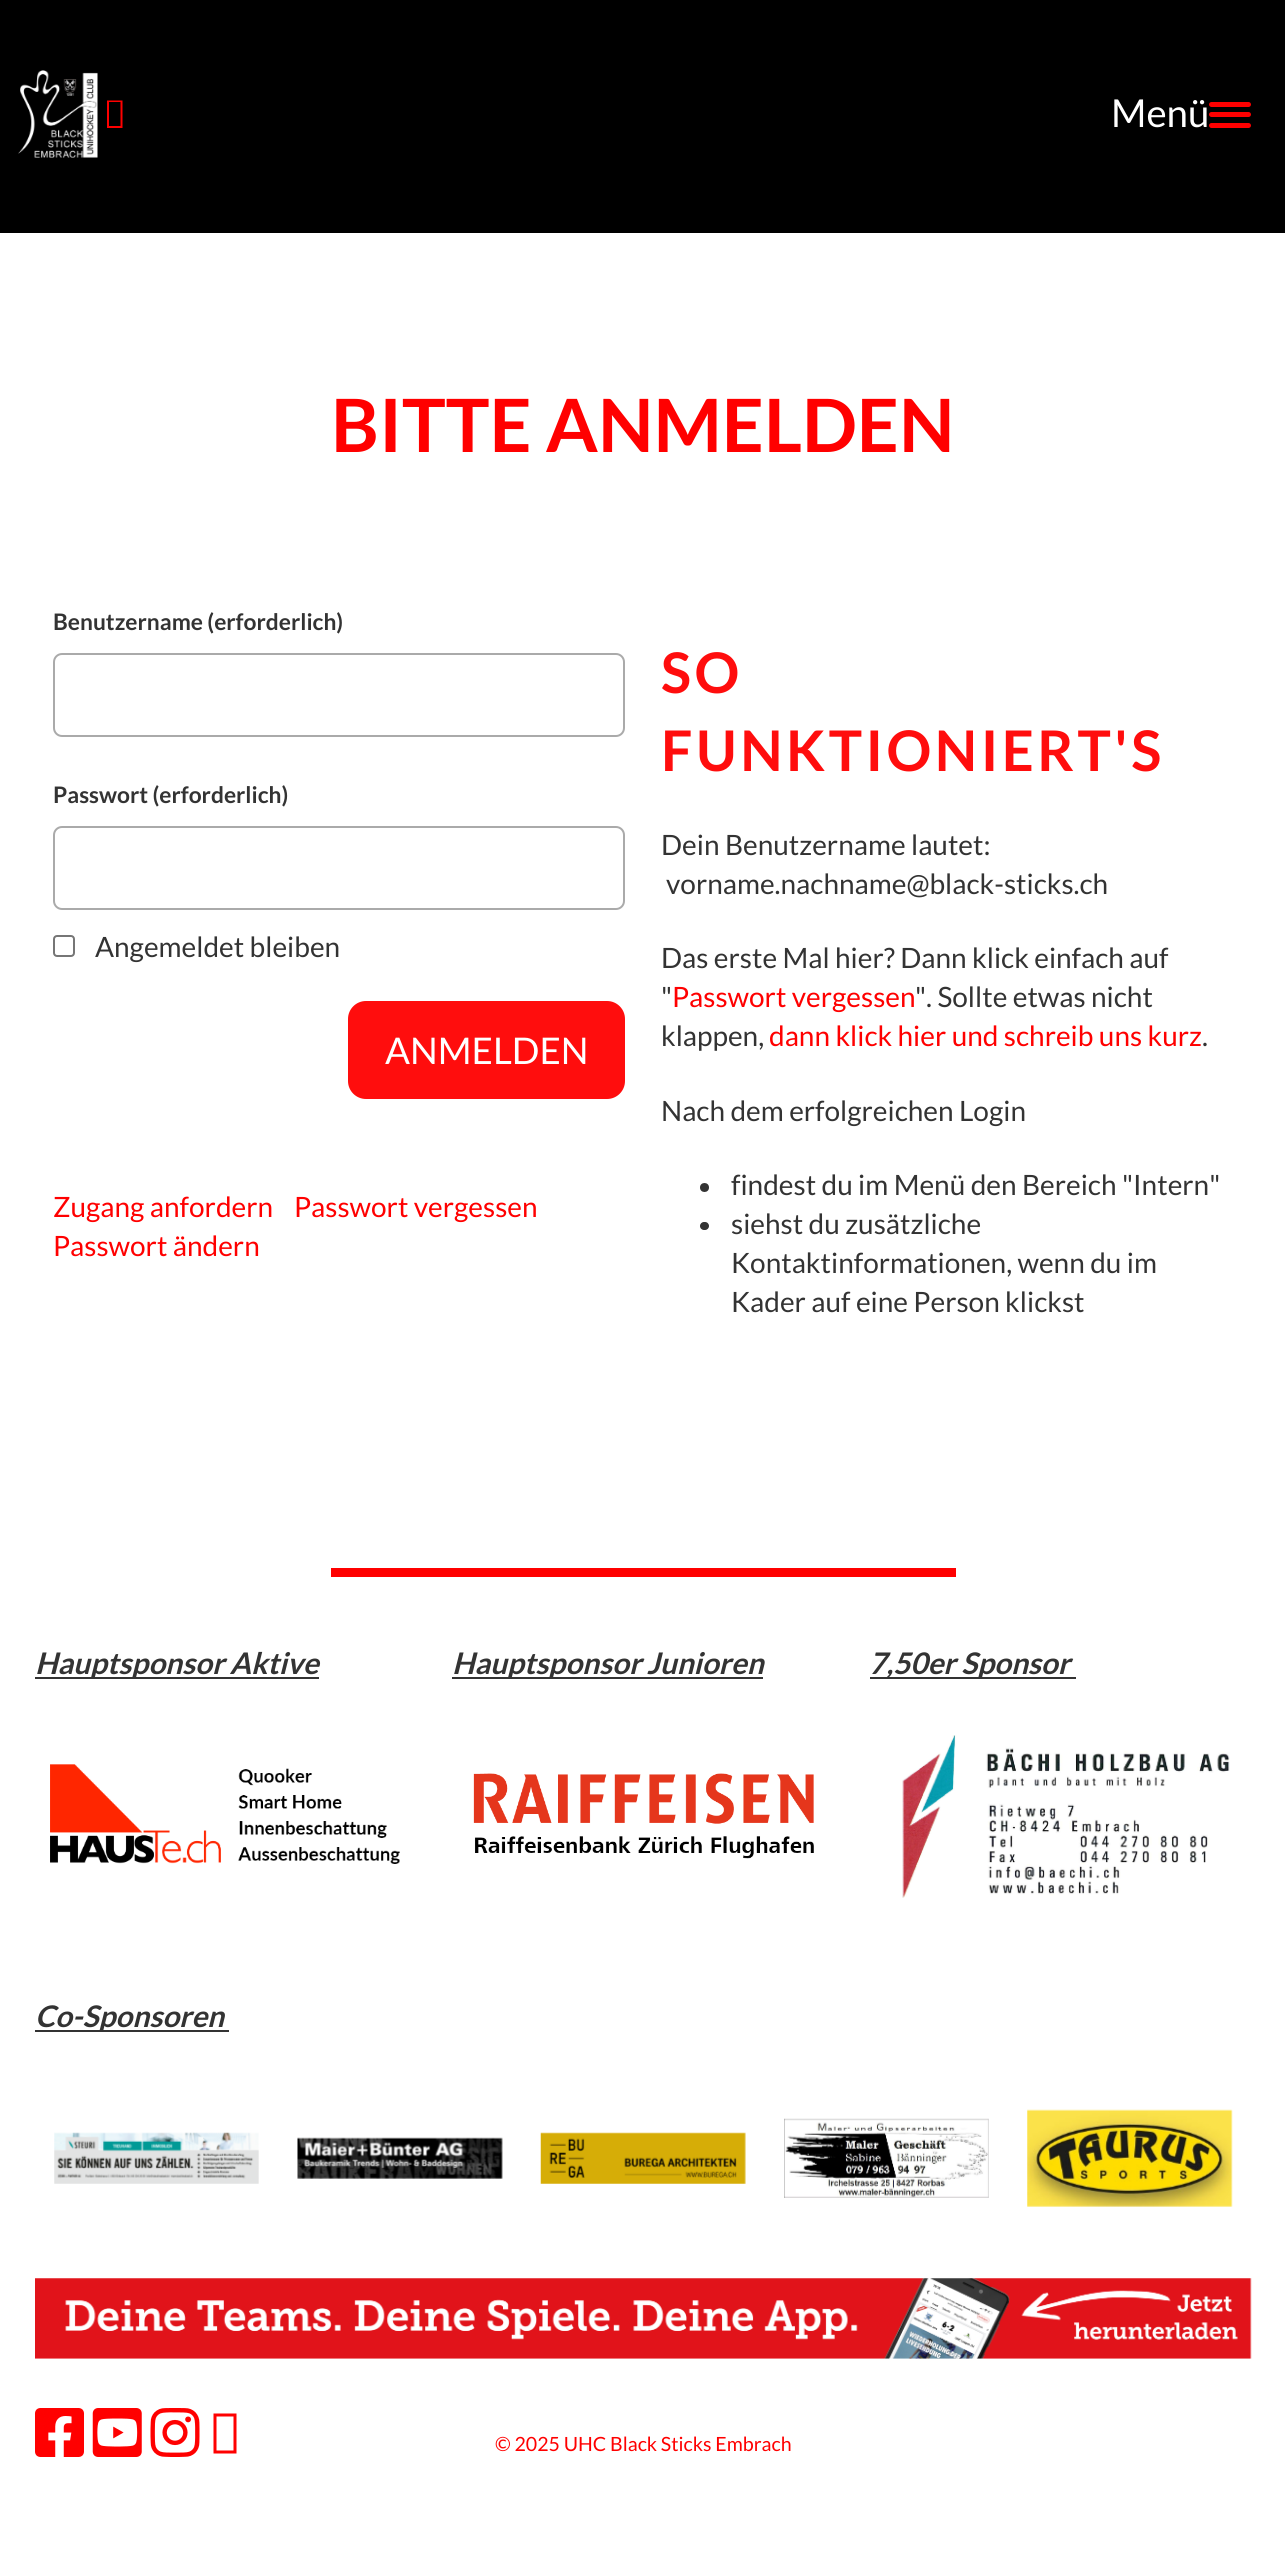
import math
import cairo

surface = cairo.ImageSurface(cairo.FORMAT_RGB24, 1285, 2566)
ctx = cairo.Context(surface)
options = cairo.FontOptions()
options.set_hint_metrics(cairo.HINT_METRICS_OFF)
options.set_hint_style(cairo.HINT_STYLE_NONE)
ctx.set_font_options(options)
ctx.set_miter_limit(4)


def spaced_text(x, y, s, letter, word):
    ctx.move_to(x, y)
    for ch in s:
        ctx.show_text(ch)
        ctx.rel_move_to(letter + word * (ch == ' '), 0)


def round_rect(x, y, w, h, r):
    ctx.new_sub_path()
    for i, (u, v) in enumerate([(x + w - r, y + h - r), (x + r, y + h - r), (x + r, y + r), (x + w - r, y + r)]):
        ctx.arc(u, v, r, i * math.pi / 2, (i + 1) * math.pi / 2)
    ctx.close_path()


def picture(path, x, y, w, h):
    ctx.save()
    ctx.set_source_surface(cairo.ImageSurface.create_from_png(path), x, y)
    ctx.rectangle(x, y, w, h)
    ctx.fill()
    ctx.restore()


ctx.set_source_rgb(1, 1, 1)
ctx.paint()
ctx.set_source_rgb(0, 0, 0)
ctx.rectangle(0, 0, 1285, 233)
ctx.fill()
picture("img1.png", 18, 70, 80, 88)
ctx.set_source_rgb(1, 0, 0)
ctx.new_path()
ctx.move_to(107, 128)
ctx.line_to(107, 100.5)
ctx.line_to(122.5, 100.5)
ctx.line_to(122.5, 128)
ctx.close_path()
ctx.move_to(109, 126)
ctx.line_to(120.5, 126)
ctx.line_to(120.5, 102)
ctx.line_to(109, 102)
ctx.close_path()
ctx.fill()
ctx.select_font_face("Lato")
ctx.set_font_size(38.5)
ctx.set_source_rgb(1, 1, 1)
ctx.move_to(1111, 127)
ctx.show_text("Menü")
ctx.set_source_rgb(1, 0, 0)
round_rect(1209, 102, 42, 5, 2.5)
ctx.fill()
round_rect(1209, 112, 42, 5, 2.5)
ctx.fill()
round_rect(1209, 123, 42, 5, 2.5)
ctx.fill()
ctx.select_font_face("Lato", cairo.FONT_SLANT_NORMAL, cairo.FONT_WEIGHT_BOLD)
ctx.set_font_size(73.5)
ctx.move_to(331, 452)
ctx.show_text("BITTE ANMELDEN")
ctx.set_font_size(22.75)
ctx.set_source_rgb(0.2, 0.2, 0.2)
ctx.move_to(53, 630)
ctx.show_text("Benutzername (erforderlich)")
round_rect(54, 654, 570, 82, 8)
ctx.set_source_rgb(0.667, 0.667, 0.667)
ctx.stroke()
ctx.set_source_rgb(0.2, 0.2, 0.2)
ctx.move_to(53, 803)
ctx.show_text("Passwort (erforderlich)")
round_rect(54, 827, 570, 82, 8)
ctx.set_source_rgb(0.667, 0.667, 0.667)
ctx.stroke()
round_rect(54, 936, 20, 20, 3)
ctx.set_source_rgb(0.463, 0.463, 0.463)
ctx.stroke()
ctx.select_font_face("Lato")
ctx.set_font_size(28)
ctx.set_source_rgb(0.2, 0.2, 0.2)
ctx.move_to(95, 957)
ctx.show_text("Angemeldet bleiben")
ctx.set_source_rgb(1, 0.051, 0.051)
round_rect(348, 1001, 277, 98, 18)
ctx.fill()
ctx.set_font_size(36.75)
ctx.set_source_rgb(1, 1, 1)
ctx.move_to(385, 1064)
ctx.show_text("ANMELDEN")
ctx.set_font_size(28)
ctx.set_source_rgb(1, 0, 0)
ctx.move_to(53, 1217)
ctx.show_text("Zugang anfordern")
ctx.move_to(294, 1217)
ctx.show_text("Passwort vergessen")
ctx.move_to(53, 1256)
ctx.show_text("Passwort ändern")
ctx.select_font_face("Lato", cairo.FONT_SLANT_NORMAL, cairo.FONT_WEIGHT_BOLD)
ctx.set_font_size(56)
ctx.set_source_rgb(1, 0.051, 0.051)
spaced_text(661, 693, "SO", 3.5, 0)
spaced_text(661, 771, "FUNKTIONIERT'S", 3.5, 0)
ctx.select_font_face("Lato")
ctx.set_font_size(28)
ctx.set_source_rgb(0.2, 0.2, 0.2)
ctx.move_to(661, 855)
ctx.show_text("Dein Benutzername lautet:")
ctx.move_to(666, 894)
ctx.show_text("vorname.nachname@black-sticks.ch")
ctx.move_to(661, 968)
ctx.show_text("Das erste Mal hier? Dann klick einfach auf")
ctx.move_to(661, 1007)
ctx.show_text("\"")
ctx.set_source_rgb(1, 0, 0)
ctx.move_to(672, 1007)
ctx.show_text("Passwort vergessen")
ctx.set_source_rgb(0.2, 0.2, 0.2)
ctx.move_to(915, 1007)
ctx.show_text("\". Sollte etwas nicht")
ctx.move_to(661, 1046)
ctx.show_text("klappen,")
ctx.set_source_rgb(1, 0, 0)
ctx.move_to(769, 1046)
ctx.show_text("dann klick hier und schreib uns kurz")
ctx.set_source_rgb(0.2, 0.2, 0.2)
ctx.move_to(1202, 1046)
ctx.show_text(".")
ctx.move_to(661, 1121)
ctx.show_text("Nach dem erfolgreichen Login")
ctx.new_path()
ctx.arc(704.5, 1187.5, 4.5, 0, 2 * math.pi)
ctx.fill()
ctx.move_to(731, 1195)
ctx.show_text("findest du im Menü den Bereich \"Intern\"")
round_rect(700, 1222, 9, 8, 4)
ctx.fill()
ctx.move_to(731, 1234)
ctx.show_text("siehst du zusätzliche")
ctx.move_to(731, 1273)
ctx.show_text("Kontaktinformationen, wenn du im")
ctx.move_to(731, 1312)
ctx.show_text("Kader auf eine Person klickst")
ctx.set_source_rgb(1, 0, 0)
ctx.rectangle(331, 1568, 625, 9)
ctx.fill()
ctx.set_source_rgb(0.2, 0.2, 0.2)
ctx.rectangle(35, 1677, 284, 2)
ctx.fill()
ctx.select_font_face("Lato", cairo.FONT_SLANT_ITALIC, cairo.FONT_WEIGHT_BOLD)
ctx.set_font_size(29.75)
ctx.move_to(35, 1674)
ctx.show_text("Hauptsponsor Aktive")
picture("img2.png", 50, 1764, 350, 100)
ctx.rectangle(452, 1677, 311, 2)
ctx.fill()
ctx.move_to(452, 1674)
ctx.show_text("Hauptsponsor Junioren")
picture("img3.png", 473, 1773, 341, 86)
ctx.rectangle(870, 1677, 206, 2)
ctx.fill()
ctx.move_to(869, 1674)
ctx.show_text("7,50er Sponsor")
picture("img4.png", 902, 1735, 328, 163)
ctx.rectangle(35, 2030, 194, 2)
ctx.fill()
ctx.move_to(35, 2027)
ctx.show_text("Co-Sponsoren")
picture("img5.png", 54, 2132, 205, 52)
picture("img6.png", 297, 2137, 206, 42)
picture("img7.png", 540, 2132, 206, 52)
picture("img8.png", 784, 2118, 205, 80)
picture("img9.png", 1027, 2109, 206, 98)
picture("img10.png", 35, 2278, 1217, 81)
picture("img11.png", 35, 2408, 49, 49)
picture("img12.png", 92, 2408, 50, 49)
picture("img13.png", 150, 2408, 50, 49)
ctx.set_source_rgb(1, 0, 0)
ctx.new_path()
ctx.move_to(213.5, 2453.5)
ctx.line_to(213.5, 2413.5)
ctx.line_to(236.5, 2413.5)
ctx.line_to(236.5, 2453.5)
ctx.close_path()
ctx.move_to(216.5, 2450.5)
ctx.line_to(233.5, 2450.5)
ctx.line_to(233.5, 2416.5)
ctx.line_to(216.5, 2416.5)
ctx.close_path()
ctx.fill()
ctx.select_font_face("Lato")
ctx.set_font_size(19.6)
ctx.move_to(495, 2451)
ctx.show_text("© 2025 UHC Black Sticks Embrach")
surface.write_to_png("page.png")
